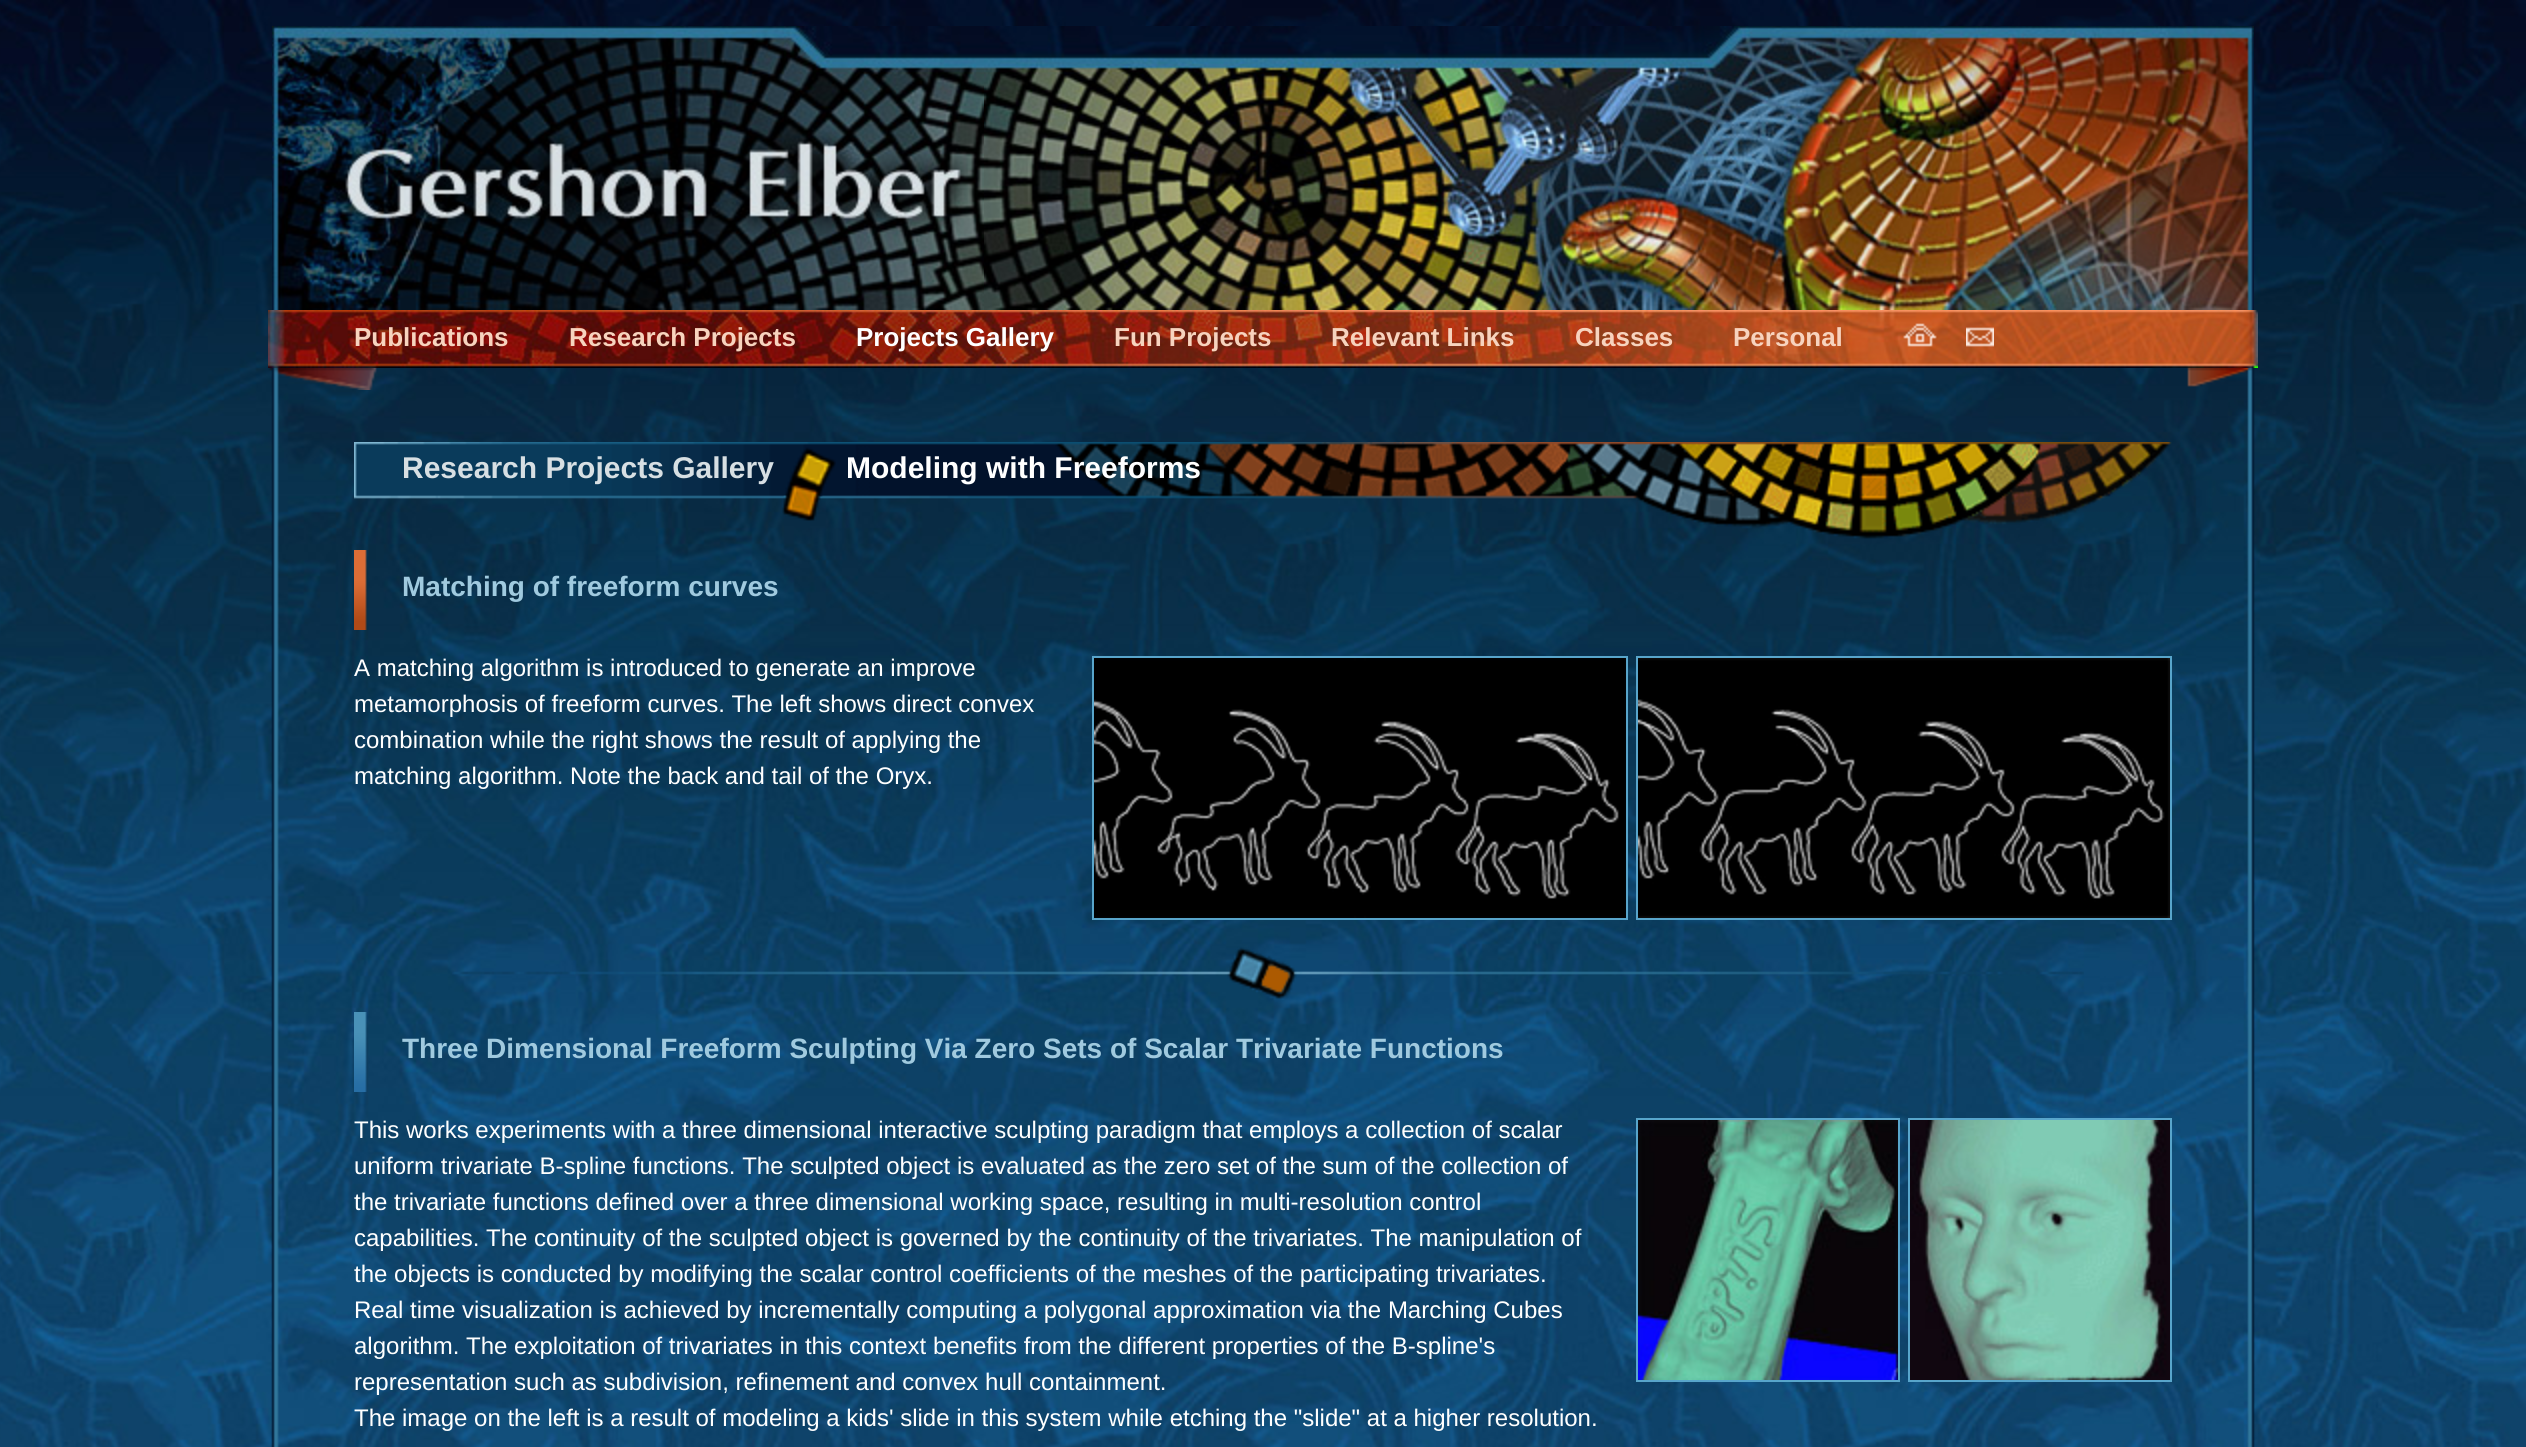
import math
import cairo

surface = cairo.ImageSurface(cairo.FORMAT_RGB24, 2526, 1447)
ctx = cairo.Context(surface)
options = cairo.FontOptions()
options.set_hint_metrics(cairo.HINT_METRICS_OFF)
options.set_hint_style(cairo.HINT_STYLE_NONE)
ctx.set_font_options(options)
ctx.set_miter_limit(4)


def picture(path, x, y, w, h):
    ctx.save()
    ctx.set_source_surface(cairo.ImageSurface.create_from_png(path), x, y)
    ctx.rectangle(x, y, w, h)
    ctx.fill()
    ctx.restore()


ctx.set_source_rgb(1, 1, 1)
ctx.paint()
picture("img1.png", 0, 0, 2526, 1447)
picture("img2.png", 272, 26, 712, 284)
picture("img3.png", 984, 26, 1270, 284)
picture("img4.png", 268, 310, 1990, 58)
ctx.select_font_face("Liberation Sans", cairo.FONT_SLANT_NORMAL, cairo.FONT_WEIGHT_BOLD)
ctx.set_font_size(26)
ctx.set_source_rgb(0.965, 0.827, 0.745)
ctx.move_to(354, 346)
ctx.show_text("Publications")
ctx.move_to(569, 346)
ctx.show_text("Research Projects")
ctx.set_source_rgb(1, 1, 1)
ctx.move_to(856, 346)
ctx.show_text("Projects Gallery")
ctx.set_source_rgb(0.965, 0.827, 0.745)
ctx.move_to(1114, 346)
ctx.show_text("Fun Projects")
ctx.move_to(1331, 346)
ctx.show_text("Relevant Links")
ctx.move_to(1575, 346)
ctx.show_text("Classes")
ctx.move_to(1733, 346)
ctx.show_text("Personal")
picture("img5.png", 1903, 323, 34, 24)
picture("img6.png", 1966, 327, 28, 20)
picture("img7.png", 268, 368, 1987, 22)
picture("img8.png", 271, 390, 1984, 1057)
picture("img9.png", 354, 442, 1818, 97)
ctx.set_font_size(30)
ctx.set_source_rgb(0.843, 0.875, 0.89)
ctx.move_to(402, 478)
ctx.show_text("Research Projects Gallery")
picture("img10.png", 782, 447, 54, 74)
ctx.set_source_rgb(1, 1, 1)
ctx.move_to(846, 478)
ctx.show_text("Modeling with Freeforms")
picture("img11.png", 354, 550, 13, 80)
ctx.set_font_size(28)
ctx.set_source_rgb(0.627, 0.792, 0.875)
ctx.move_to(402, 596)
ctx.show_text("Matching of freeform curves")
ctx.select_font_face("Liberation Sans")
ctx.set_font_size(24)
ctx.set_source_rgb(1, 1, 1)
ctx.move_to(354, 676)
ctx.show_text("A matching algorithm is introduced to generate an improve")
ctx.move_to(354, 712)
ctx.show_text("metamorphosis of freeform curves. The left shows direct convex")
ctx.move_to(354, 748)
ctx.show_text("combination while the right shows the result of applying the")
ctx.move_to(354, 784)
ctx.show_text("matching algorithm. Note the back and tail of the Oryx.")
ctx.rectangle(1093, 657, 534, 262)
ctx.set_source_rgb(0.345, 0.647, 0.796)
ctx.stroke()
picture("img12.png", 1094, 658, 532, 260)
ctx.rectangle(1637, 657, 534, 262)
ctx.stroke()
picture("img13.png", 1638, 658, 532, 260)
picture("img14.png", 452, 947, 1632, 53)
picture("img15.png", 354, 1012, 13, 80)
ctx.select_font_face("Liberation Sans", cairo.FONT_SLANT_NORMAL, cairo.FONT_WEIGHT_BOLD)
ctx.set_font_size(28)
ctx.set_source_rgb(0.627, 0.792, 0.875)
ctx.move_to(402, 1058)
ctx.show_text("Three Dimensional Freeform Sculpting Via Zero Sets of Scalar Trivariate Functions")
ctx.select_font_face("Liberation Sans")
ctx.set_font_size(24)
ctx.set_source_rgb(1, 1, 1)
ctx.move_to(354, 1138)
ctx.show_text("This works experiments with a three dimensional interactive sculpting paradigm that employs a collection of scalar")
ctx.move_to(354, 1174)
ctx.show_text("uniform trivariate B-spline functions. The sculpted object is evaluated as the zero set of the sum of the collection of")
ctx.move_to(354, 1210)
ctx.show_text("the trivariate functions defined over a three dimensional working space, resulting in multi-resolution control")
ctx.move_to(354, 1246)
ctx.show_text("capabilities. The continuity of the sculpted object is governed by the continuity of the trivariates. The manipulation of")
ctx.move_to(354, 1282)
ctx.show_text("the objects is conducted by modifying the scalar control coefficients of the meshes of the participating trivariates.")
ctx.move_to(354, 1318)
ctx.show_text("Real time visualization is achieved by incrementally computing a polygonal approximation via the Marching Cubes")
ctx.move_to(354, 1354)
ctx.show_text("algorithm. The exploitation of trivariates in this context benefits from the different properties of the B-spline's")
ctx.move_to(354, 1390)
ctx.show_text("representation such as subdivision, refinement and convex hull containment.")
ctx.move_to(354, 1426)
ctx.show_text("The image on the left is a result of modeling a kids' slide in this system while etching the \"slide\" at a higher resolution.")
ctx.rectangle(1637, 1119, 262, 262)
ctx.set_source_rgb(0.345, 0.647, 0.796)
ctx.stroke()
picture("img16.png", 1638, 1120, 260, 260)
ctx.rectangle(1909, 1119, 262, 262)
ctx.stroke()
picture("img17.png", 1910, 1120, 260, 260)
surface.write_to_png("page.png")
